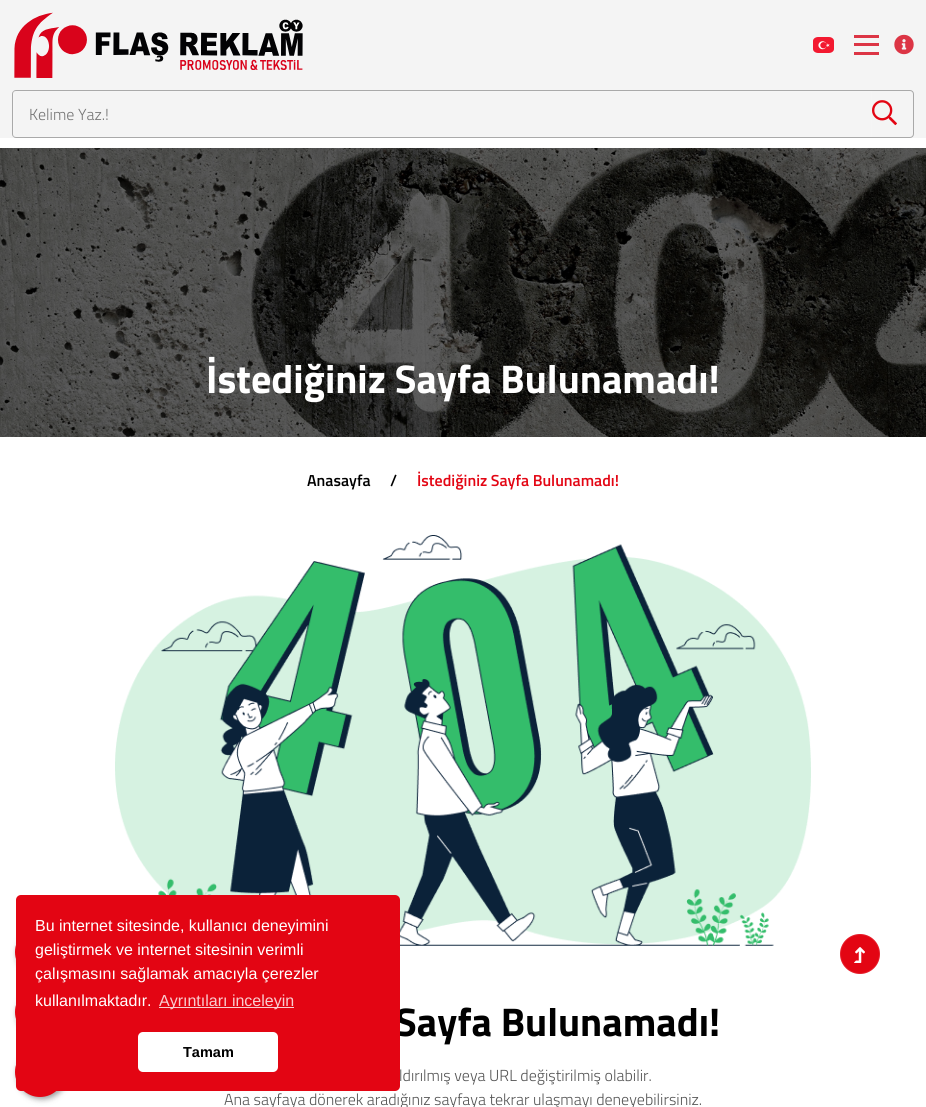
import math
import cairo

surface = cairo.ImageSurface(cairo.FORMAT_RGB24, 926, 1107)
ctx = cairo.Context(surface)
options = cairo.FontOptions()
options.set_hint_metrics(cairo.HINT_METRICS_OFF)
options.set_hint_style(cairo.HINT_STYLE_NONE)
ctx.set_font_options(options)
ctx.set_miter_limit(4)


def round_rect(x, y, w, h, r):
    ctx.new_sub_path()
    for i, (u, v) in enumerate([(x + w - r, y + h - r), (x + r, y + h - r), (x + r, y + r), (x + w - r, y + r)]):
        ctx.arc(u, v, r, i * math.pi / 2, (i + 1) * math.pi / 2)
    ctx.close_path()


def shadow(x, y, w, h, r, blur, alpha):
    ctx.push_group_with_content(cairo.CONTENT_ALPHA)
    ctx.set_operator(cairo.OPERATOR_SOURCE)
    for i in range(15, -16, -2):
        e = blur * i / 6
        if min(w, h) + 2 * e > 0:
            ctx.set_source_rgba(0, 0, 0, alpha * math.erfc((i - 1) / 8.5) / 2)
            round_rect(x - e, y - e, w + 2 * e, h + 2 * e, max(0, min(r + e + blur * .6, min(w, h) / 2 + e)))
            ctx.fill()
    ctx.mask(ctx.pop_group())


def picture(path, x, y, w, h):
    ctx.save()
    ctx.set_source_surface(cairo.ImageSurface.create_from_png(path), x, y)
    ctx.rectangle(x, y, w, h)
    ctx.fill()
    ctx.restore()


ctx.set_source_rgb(1, 1, 1)
ctx.paint()
ctx.set_source_rgb(0.957, 0.957, 0.957)
ctx.rectangle(0, 0, 926, 138)
ctx.fill()
picture("img1.png", 14, 12, 289, 66)
picture("img2.png", 813, 37, 21, 16)
ctx.set_source_rgb(0.863, 0.208, 0.271)
ctx.rectangle(854, 35, 25, 3)
ctx.fill()
ctx.rectangle(854, 43, 25, 3)
ctx.fill()
ctx.rectangle(854, 52, 25, 3)
ctx.fill()
picture("img3.png", 894, 34, 20, 21)
round_rect(12.5, 90.5, 901, 47, 3.5)
ctx.set_source_rgb(0.663, 0.663, 0.663)
ctx.set_line_width(1)
ctx.stroke()
ctx.set_source_rgba(1, 1, 1, 0.1)
ctx.rectangle(13, 91, 2, 46)
ctx.fill()
ctx.rectangle(13.5, 91.5, 858, 45)
ctx.stroke()
ctx.select_font_face("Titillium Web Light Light")
ctx.set_font_size(16)
ctx.set_source_rgb(0.459, 0.459, 0.459)
ctx.move_to(29, 120)
ctx.show_text("Kelime Yaz.!")
picture("img4.png", 872, 100, 25, 26)
picture("img5.png", 0, 148, 926, 289)
ctx.select_font_face("Titillium Web", cairo.FONT_SLANT_NORMAL, cairo.FONT_WEIGHT_BOLD)
ctx.set_font_size(40)
ctx.set_source_rgb(1, 1, 1)
ctx.move_to(206, 393)
ctx.show_text("İstediğiniz Sayfa Bulunamadı!")
ctx.select_font_face("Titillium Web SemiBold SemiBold")
ctx.set_font_size(16)
ctx.set_source_rgb(0, 0, 0)
ctx.move_to(307, 486)
ctx.show_text("Anasayfa")
ctx.move_to(390, 486)
ctx.show_text("/")
ctx.set_source_rgb(0.89, 0.02, 0.075)
ctx.move_to(417, 486)
ctx.show_text("İstediğiniz Sayfa Bulunamadı!")
ctx.set_source_rgb(0, 0, 0)
shadow(17, 929, 50, 50, 25, 3, 0.4)
ctx.set_source_rgb(0.89, 0.02, 0.075)
ctx.arc(40, 952, 25, 0, 2 * math.pi)
ctx.fill()
ctx.set_source_rgb(0, 0, 0)
shadow(17, 989, 50, 50, 25, 3, 0.4)
ctx.set_source_rgb(0.89, 0.02, 0.075)
ctx.arc(40, 1012, 25, 0, 2 * math.pi)
ctx.fill()
ctx.set_source_rgb(0, 0, 0)
shadow(17, 1049, 50, 50, 25, 3, 0.4)
ctx.set_source_rgb(0.89, 0.02, 0.075)
ctx.arc(40, 1072, 25, 0, 2 * math.pi)
ctx.fill()
picture("img7.png", 115, 535, 696, 411)
ctx.select_font_face("Titillium Web", cairo.FONT_SLANT_NORMAL, cairo.FONT_WEIGHT_BOLD)
ctx.set_font_size(40)
ctx.set_source_rgb(0, 0, 0)
ctx.move_to(395, 1036)
ctx.show_text("Sayfa Bulunamadı!")
ctx.select_font_face("Titillium Web Light Light")
ctx.set_font_size(16)
ctx.set_source_rgb(0.333, 0.333, 0.333)
ctx.move_to(399, 1081)
ctx.show_text("ldırılmış veya URL değiştirilmiş olabilir.")
ctx.set_source_rgb(0.89, 0.02, 0.075)
round_rect(16, 895, 384, 196, 5)
ctx.fill()
ctx.select_font_face("Liberation Sans")
ctx.set_source_rgb(1, 1, 1)
ctx.move_to(35, 931)
ctx.show_text("Bu internet sitesinde, kullanıcı deneyimini")
ctx.move_to(35, 955)
ctx.show_text("geliştirmek ve internet sitesinin verimli")
ctx.move_to(35, 979)
ctx.show_text("çalışmasını sağlamak amacıyla çerezler")
ctx.move_to(35, 1006)
ctx.show_text("kullanılmaktadır.")
ctx.set_source_rgb(0.976, 0.804, 0.816)
ctx.rectangle(159, 1007, 135, 1)
ctx.fill()
ctx.move_to(159, 1006)
ctx.show_text("Ayrıntıları inceleyin")
ctx.set_source_rgb(1, 1, 1)
round_rect(138, 1032, 140, 40, 5)
ctx.fill()
ctx.select_font_face("Liberation Sans", cairo.FONT_SLANT_NORMAL, cairo.FONT_WEIGHT_BOLD)
ctx.set_font_size(14.5)
ctx.set_source_rgb(0, 0, 0)
ctx.move_to(183, 1057)
ctx.show_text("Tamam")
ctx.set_source_rgb(0.89, 0.02, 0.075)
ctx.new_path()
ctx.arc(860, 954, 20, 0, 2 * math.pi)
ctx.fill()
ctx.arc(860, 954, 19.5, 0, 2 * math.pi)
ctx.set_source_rgba(1, 1, 1, 0.1)
ctx.stroke()
picture("img6.png", 854, 947, 11, 16)
ctx.select_font_face("Titillium Web Light Light")
ctx.set_font_size(16)
ctx.set_source_rgb(0.333, 0.333, 0.333)
ctx.move_to(224, 1105)
ctx.show_text("Ana sayfaya dönerek aradığınız sayfaya tekrar ulaşmayı deneyebilirsiniz.")
surface.write_to_png("page.png")
